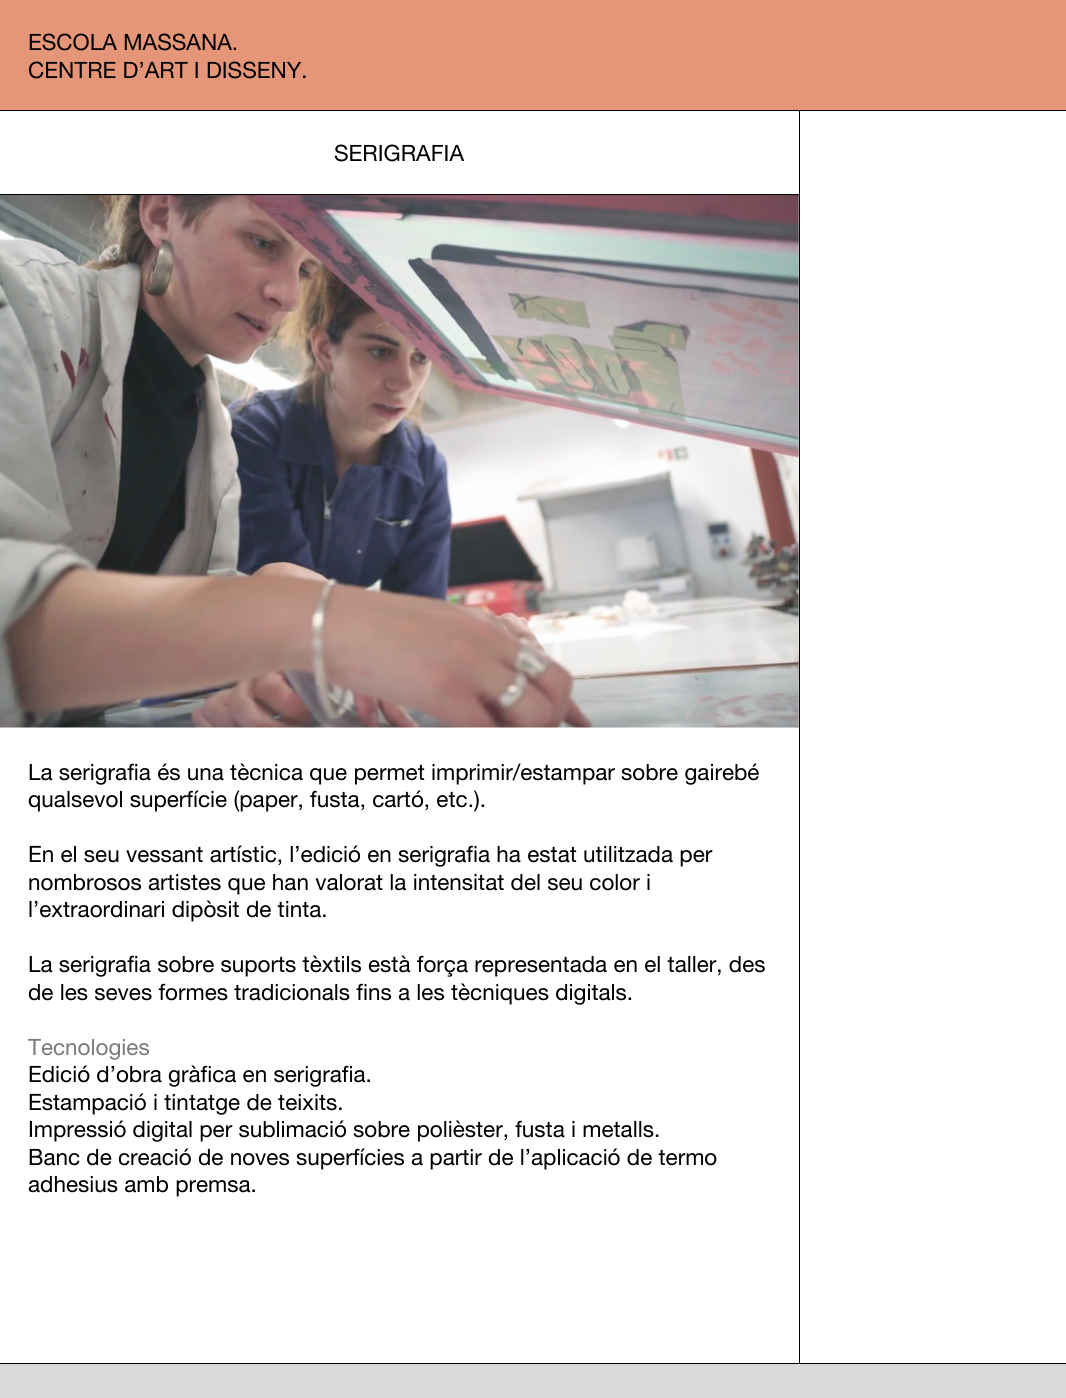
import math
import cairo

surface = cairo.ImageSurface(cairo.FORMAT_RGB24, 1066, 1398)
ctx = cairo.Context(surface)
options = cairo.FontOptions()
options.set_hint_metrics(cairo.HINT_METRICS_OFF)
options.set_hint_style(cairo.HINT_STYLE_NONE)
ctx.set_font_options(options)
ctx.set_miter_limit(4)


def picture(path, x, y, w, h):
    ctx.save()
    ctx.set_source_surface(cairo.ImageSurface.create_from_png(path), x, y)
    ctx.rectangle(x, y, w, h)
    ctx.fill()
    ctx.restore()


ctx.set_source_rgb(1, 1, 1)
ctx.paint()
ctx.set_source_rgb(0.902, 0.588, 0.471)
ctx.rectangle(0, 0, 1066, 110)
ctx.fill()
ctx.set_source_rgb(0, 0, 0)
ctx.rectangle(0, 110, 1066, 1)
ctx.fill()
ctx.select_font_face("Helvetica Neue")
ctx.set_font_size(22.5)
ctx.move_to(28, 50)
ctx.show_text("ESCOLA MASSANA.")
ctx.move_to(28, 78)
ctx.show_text("CENTRE D’ART I DISSENY.")
ctx.rectangle(799, 111, 1, 1252)
ctx.fill()
ctx.move_to(334, 161)
ctx.show_text("SERIGRAFIA")
ctx.rectangle(0, 194, 799, 1)
ctx.fill()
picture("img1.png", 0, 195, 799, 533)
ctx.move_to(28, 780)
ctx.show_text("La serigrafia és una tècnica que permet imprimir/estampar sobre gairebé")
ctx.move_to(28, 807)
ctx.show_text("qualsevol superfície (paper, fusta, cartó, etc.).")
ctx.move_to(28, 862)
ctx.show_text("En el seu vessant artístic, l’edició en serigrafia ha estat utilitzada per")
ctx.move_to(28, 890)
ctx.show_text("nombrosos artistes que han valorat la intensitat del seu color i")
ctx.move_to(28, 917)
ctx.show_text("l’extraordinari dipòsit de tinta.")
ctx.move_to(28, 972)
ctx.show_text("La serigrafia sobre suports tèxtils està força representada en el taller, des")
ctx.move_to(28, 1000)
ctx.show_text("de les seves formes tradicionals fins a les tècniques digitals.")
ctx.set_source_rgb(0.478, 0.478, 0.478)
ctx.move_to(28, 1055)
ctx.show_text("Tecnologies")
ctx.set_source_rgb(0, 0, 0)
ctx.move_to(28, 1082)
ctx.show_text("Edició d’obra gràfica en serigrafia.")
ctx.move_to(28, 1110)
ctx.show_text("Estampació i tintatge de teixits.")
ctx.move_to(28, 1137)
ctx.show_text("Impressió digital per sublimació sobre polièster, fusta i metalls.")
ctx.move_to(28, 1165)
ctx.show_text("Banc de creació de noves superfícies a partir de l’aplicació de termo")
ctx.move_to(28, 1192)
ctx.show_text("adhesius amb premsa.")
ctx.set_source_rgb(0.851, 0.851, 0.851)
ctx.rectangle(0, 1364, 1066, 34)
ctx.fill()
ctx.set_source_rgb(0, 0, 0)
ctx.rectangle(0, 1363, 1066, 1)
ctx.fill()
surface.write_to_png("page.png")
